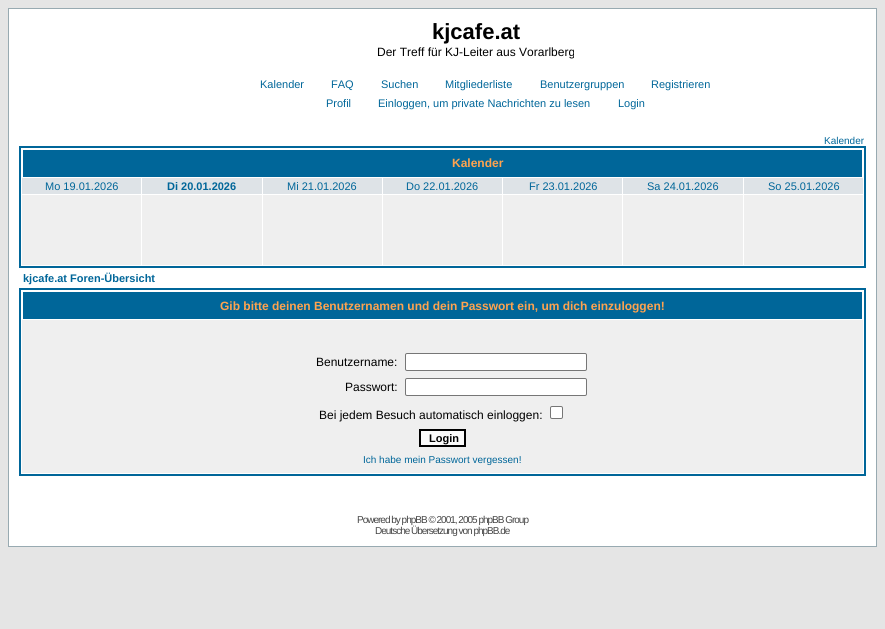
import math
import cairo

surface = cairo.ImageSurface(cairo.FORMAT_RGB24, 885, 629)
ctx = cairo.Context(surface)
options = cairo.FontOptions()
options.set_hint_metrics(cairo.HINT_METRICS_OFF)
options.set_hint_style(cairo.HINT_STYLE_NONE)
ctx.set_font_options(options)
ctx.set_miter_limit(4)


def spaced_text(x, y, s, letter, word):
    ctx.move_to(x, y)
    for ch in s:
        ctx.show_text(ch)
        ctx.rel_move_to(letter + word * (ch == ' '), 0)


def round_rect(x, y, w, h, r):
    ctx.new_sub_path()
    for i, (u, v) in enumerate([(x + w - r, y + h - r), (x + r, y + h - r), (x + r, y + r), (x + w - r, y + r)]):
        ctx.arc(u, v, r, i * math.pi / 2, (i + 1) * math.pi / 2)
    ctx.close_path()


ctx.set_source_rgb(0.898, 0.898, 0.898)
ctx.paint()
ctx.set_source_rgb(1, 1, 1)
ctx.rectangle(8.5, 8.5, 868, 538)
ctx.fill_preserve()
ctx.set_source_rgb(0.596, 0.667, 0.694)
ctx.set_line_width(1)
ctx.stroke()
ctx.select_font_face("Liberation Sans", cairo.FONT_SLANT_NORMAL, cairo.FONT_WEIGHT_BOLD)
ctx.set_font_size(22)
ctx.set_source_rgb(0, 0, 0)
ctx.move_to(432, 39)
ctx.show_text("kjcafe.at")
ctx.select_font_face("Liberation Sans")
ctx.set_font_size(12)
ctx.move_to(377, 56)
ctx.show_text("Der Treff für KJ-Leiter aus Vorarlberg")
ctx.set_font_size(11)
ctx.set_source_rgb(0, 0.4, 0.6)
ctx.move_to(260, 88)
ctx.show_text("Kalender")
ctx.move_to(331, 88)
ctx.show_text("FAQ")
ctx.move_to(381, 88)
ctx.show_text("Suchen")
ctx.move_to(445, 88)
ctx.show_text("Mitgliederliste")
ctx.move_to(540, 88)
ctx.show_text("Benutzergruppen")
ctx.move_to(651, 88)
ctx.show_text("Registrieren")
ctx.move_to(326, 107)
ctx.show_text("Profil")
ctx.move_to(378, 107)
ctx.show_text("Einloggen, um private Nachrichten zu lesen")
ctx.move_to(618, 107)
ctx.show_text("Login")
ctx.set_font_size(10)
ctx.move_to(824, 144)
ctx.show_text("Kalender")
ctx.rectangle(20, 147, 845, 120)
ctx.set_line_width(2)
ctx.stroke()
ctx.rectangle(23, 150, 839, 27)
ctx.fill()
ctx.select_font_face("Liberation Sans", cairo.FONT_SLANT_NORMAL, cairo.FONT_WEIGHT_BOLD)
ctx.set_font_size(12)
ctx.set_source_rgb(1, 0.639, 0.31)
ctx.move_to(452, 167)
ctx.show_text("Kalender")
ctx.set_source_rgb(0.871, 0.89, 0.906)
ctx.rectangle(22, 178, 119, 16)
ctx.fill()
ctx.select_font_face("Liberation Sans")
ctx.set_font_size(11)
ctx.set_source_rgb(0, 0.4, 0.6)
ctx.move_to(45, 190)
ctx.show_text("Mo 19.01.2026")
ctx.set_source_rgb(0.871, 0.89, 0.906)
ctx.rectangle(142, 178, 120, 16)
ctx.fill()
ctx.select_font_face("Liberation Sans", cairo.FONT_SLANT_NORMAL, cairo.FONT_WEIGHT_BOLD)
ctx.set_source_rgb(0, 0.4, 0.6)
ctx.move_to(167, 190)
ctx.show_text("Di 20.01.2026")
ctx.set_source_rgb(0.871, 0.89, 0.906)
ctx.rectangle(263, 178, 119, 16)
ctx.fill()
ctx.select_font_face("Liberation Sans")
ctx.set_source_rgb(0, 0.4, 0.6)
ctx.move_to(287, 190)
ctx.show_text("Mi 21.01.2026")
ctx.set_source_rgb(0.871, 0.89, 0.906)
ctx.rectangle(383, 178, 119, 16)
ctx.fill()
ctx.set_source_rgb(0, 0.4, 0.6)
ctx.move_to(406, 190)
ctx.show_text("Do 22.01.2026")
ctx.set_source_rgb(0.871, 0.89, 0.906)
ctx.rectangle(503, 178, 119, 16)
ctx.fill()
ctx.set_source_rgb(0, 0.4, 0.6)
ctx.move_to(529, 190)
ctx.show_text("Fr 23.01.2026")
ctx.set_source_rgb(0.871, 0.89, 0.906)
ctx.rectangle(623, 178, 120, 16)
ctx.fill()
ctx.set_source_rgb(0, 0.4, 0.6)
ctx.move_to(647, 190)
ctx.show_text("Sa 24.01.2026")
ctx.set_source_rgb(0.871, 0.89, 0.906)
ctx.rectangle(744, 178, 119, 16)
ctx.fill()
ctx.set_source_rgb(0, 0.4, 0.6)
ctx.move_to(768, 190)
ctx.show_text("So 25.01.2026")
ctx.set_source_rgb(0.937, 0.937, 0.937)
ctx.rectangle(22, 195, 119, 70)
ctx.fill()
ctx.rectangle(142, 195, 120, 70)
ctx.fill()
ctx.rectangle(263, 195, 119, 70)
ctx.fill()
ctx.rectangle(383, 195, 119, 70)
ctx.fill()
ctx.rectangle(503, 195, 119, 70)
ctx.fill()
ctx.rectangle(623, 195, 120, 70)
ctx.fill()
ctx.rectangle(744, 195, 119, 70)
ctx.fill()
ctx.select_font_face("Liberation Sans", cairo.FONT_SLANT_NORMAL, cairo.FONT_WEIGHT_BOLD)
ctx.set_source_rgb(0, 0.4, 0.6)
ctx.move_to(23, 282)
ctx.show_text("kjcafe.at Foren-Übersicht")
ctx.rectangle(20, 289, 845, 186)
ctx.stroke()
ctx.rectangle(23, 292, 839, 27)
ctx.fill()
ctx.set_font_size(12)
ctx.set_source_rgb(1, 0.639, 0.31)
ctx.move_to(220, 310)
ctx.show_text("Gib bitte deinen Benutzernamen und dein Passwort ein, um dich einzuloggen!")
ctx.set_source_rgb(0.937, 0.937, 0.937)
ctx.rectangle(22, 320, 841, 153)
ctx.fill()
ctx.select_font_face("Liberation Sans")
ctx.set_source_rgb(0, 0, 0)
ctx.move_to(316, 366)
ctx.show_text("Benutzername:")
ctx.set_source_rgb(1, 1, 1)
round_rect(405.5, 353.5, 181, 17, 1.5)
ctx.fill_preserve()
ctx.set_source_rgb(0.463, 0.463, 0.463)
ctx.set_line_width(1)
ctx.stroke()
ctx.set_source_rgb(0, 0, 0)
ctx.move_to(345, 391)
ctx.show_text("Passwort:")
ctx.set_source_rgb(1, 1, 1)
round_rect(405.5, 378.5, 181, 17, 1.5)
ctx.fill_preserve()
ctx.set_source_rgb(0.463, 0.463, 0.463)
ctx.stroke()
ctx.set_source_rgb(0, 0, 0)
ctx.move_to(319, 419)
ctx.show_text("Bei jedem Besuch automatisch einloggen:")
ctx.set_source_rgb(1, 1, 1)
round_rect(550.5, 406.5, 12, 12, 1.5)
ctx.fill_preserve()
ctx.set_source_rgb(0.463, 0.463, 0.463)
ctx.stroke()
ctx.set_source_rgb(0.98, 0.98, 0.98)
ctx.rectangle(420, 430, 45, 16)
ctx.fill_preserve()
ctx.set_source_rgb(0, 0, 0)
ctx.set_line_width(2)
ctx.stroke()
ctx.select_font_face("Liberation Sans", cairo.FONT_SLANT_NORMAL, cairo.FONT_WEIGHT_BOLD)
ctx.set_font_size(11)
ctx.move_to(429, 442)
ctx.show_text("Login")
ctx.select_font_face("Liberation Sans")
ctx.set_font_size(10)
ctx.set_source_rgb(0, 0.4, 0.6)
ctx.move_to(363, 463)
ctx.show_text("Ich habe mein Passwort vergessen!")
ctx.set_source_rgb(0.267, 0.267, 0.267)
spaced_text(357, 523, "Powered by phpBB © 2001, 2005 phpBB Group", -1, 0)
spaced_text(375, 534, "Deutsche Übersetzung von phpBB.de", -1, 0)
surface.write_to_png("page.png")
